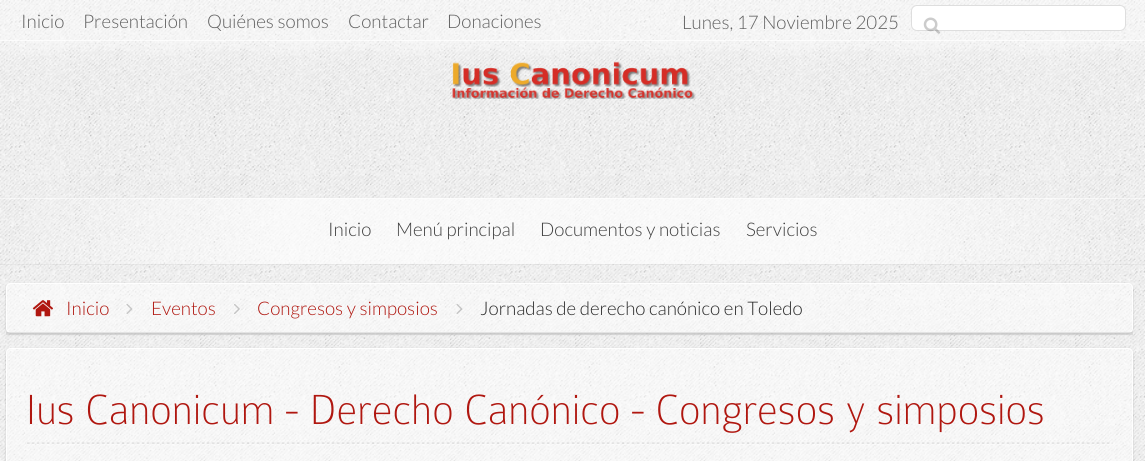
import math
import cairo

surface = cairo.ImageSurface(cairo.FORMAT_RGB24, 1145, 461)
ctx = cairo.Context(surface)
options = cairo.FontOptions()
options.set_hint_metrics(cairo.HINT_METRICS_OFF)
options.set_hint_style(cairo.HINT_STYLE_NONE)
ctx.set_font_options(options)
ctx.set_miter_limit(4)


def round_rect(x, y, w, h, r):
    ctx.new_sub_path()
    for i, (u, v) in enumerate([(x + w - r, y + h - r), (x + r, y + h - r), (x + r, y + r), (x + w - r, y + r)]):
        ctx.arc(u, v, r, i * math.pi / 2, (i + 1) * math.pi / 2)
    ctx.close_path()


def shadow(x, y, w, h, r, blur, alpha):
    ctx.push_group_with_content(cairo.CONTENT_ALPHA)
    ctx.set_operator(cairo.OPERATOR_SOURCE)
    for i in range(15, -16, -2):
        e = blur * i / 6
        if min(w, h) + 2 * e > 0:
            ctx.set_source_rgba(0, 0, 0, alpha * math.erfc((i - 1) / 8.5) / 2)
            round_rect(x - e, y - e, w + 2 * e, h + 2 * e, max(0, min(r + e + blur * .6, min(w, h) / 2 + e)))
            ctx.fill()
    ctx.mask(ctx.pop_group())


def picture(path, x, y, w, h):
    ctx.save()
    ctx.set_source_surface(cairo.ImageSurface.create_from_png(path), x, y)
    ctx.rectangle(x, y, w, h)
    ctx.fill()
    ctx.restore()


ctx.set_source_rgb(1, 1, 1)
ctx.paint()
picture("img1.png", 0, 0, 1145, 461)
picture("img3.png", 452, 61, 244, 38)
ctx.save()
ctx.rectangle(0, 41, 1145, 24)
ctx.clip()
shadow(0, 0, 1145, 41, 0, 12.5, 0.75)
ctx.restore()
ctx.set_source_rgba(1, 1, 1, 0.4)
ctx.rectangle(0, 0, 1145, 41)
ctx.fill()
ctx.set_source_rgba(1, 1, 1, 0.75)
ctx.rectangle(0, 40, 1145, 1)
ctx.fill()
ctx.select_font_face("Lato Light")
ctx.set_font_size(18.75)
ctx.set_source_rgb(0.376, 0.376, 0.376)
ctx.move_to(21, 28)
ctx.show_text("Inicio")
ctx.move_to(83, 28)
ctx.show_text("Presentación")
ctx.move_to(207, 28)
ctx.show_text("Quiénes somos")
ctx.move_to(348, 28)
ctx.show_text("Contactar")
ctx.move_to(447, 28)
ctx.show_text("Donaciones")
ctx.move_to(682, 29)
ctx.show_text("Lunes, 17 Noviembre 2025")
ctx.set_source_rgb(1, 1, 1)
round_rect(911.5, 5.5, 214, 25, 5.5)
ctx.fill_preserve()
ctx.set_source_rgb(0.871, 0.871, 0.871)
ctx.set_line_width(1)
ctx.stroke()
picture("img2.png", 923, 17, 17, 17)
ctx.save()
ctx.rectangle(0, 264, 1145, 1)
ctx.clip()
ctx.set_source_rgb(0, 0, 0)
shadow(0, 199, 1145, 66, 0, 0.5, 0.05)
ctx.restore()
gradient = cairo.LinearGradient(0, 231, 1145, 231)
gradient.add_color_stop_rgba(0, 1, 1, 1, 0)
gradient.add_color_stop_rgba(0.25, 1, 1, 1, 0.65)
gradient.add_color_stop_rgba(0.75, 1, 1, 1, 0.65)
gradient.add_color_stop_rgba(1, 1, 1, 1, 0)
ctx.set_source(gradient)
ctx.rectangle(29, 198, 1086, 66)
ctx.fill()
ctx.set_source_rgba(1, 1, 1, 0.5)
ctx.rectangle(0, 198, 1145, 1)
ctx.fill()
ctx.set_source_rgb(0.251, 0.251, 0.251)
ctx.move_to(328, 236)
ctx.show_text("Inicio")
ctx.move_to(396, 236)
ctx.show_text("Menú principal")
ctx.move_to(540, 236)
ctx.show_text("Documentos y noticias")
ctx.move_to(746, 236)
ctx.show_text("Servicios")
ctx.save()
ctx.set_fill_rule(cairo.FILL_RULE_EVEN_ODD)
ctx.new_path()
ctx.move_to(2, 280)
ctx.line_to(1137, 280)
ctx.line_to(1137, 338)
ctx.line_to(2, 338)
ctx.close_path()
ctx.move_to(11, 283)
ctx.line_to(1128, 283)
ctx.curve_to(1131, 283, 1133, 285, 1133, 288)
ctx.line_to(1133, 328)
ctx.curve_to(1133, 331, 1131, 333, 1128, 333)
ctx.line_to(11, 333)
ctx.curve_to(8, 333, 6, 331, 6, 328)
ctx.line_to(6, 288)
ctx.curve_to(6, 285, 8, 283, 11, 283)
ctx.close_path()
ctx.clip()
ctx.set_source_rgb(0, 0, 0)
shadow(6, 284, 1127, 50, 5, 1, 0.2)
ctx.restore()
ctx.set_source_rgba(1, 1, 1, 0.5)
round_rect(6, 283, 1127, 50, 5)
ctx.fill()
round_rect(6.5, 283.5, 1126, 49, 4.5)
ctx.set_source_rgba(1, 1, 1, 0.9)
ctx.stroke()
picture("img4.png", 32, 300, 21, 17)
ctx.set_source_rgb(0.69, 0.09, 0.063)
ctx.move_to(66, 315)
ctx.show_text("Inicio")
picture("img5.png", 126, 304, 7, 10)
ctx.move_to(151, 315)
ctx.show_text("Eventos")
picture("img6.png", 234, 304, 6, 10)
ctx.move_to(257, 315)
ctx.show_text("Congresos y simposios")
picture("img7.png", 456, 304, 7, 10)
ctx.set_source_rgb(0.169, 0.169, 0.169)
ctx.move_to(480, 315)
ctx.show_text("Jornadas de derecho canónico en Toledo")
ctx.set_source_rgba(0.792, 0.792, 0.792, 0.53)
ctx.rectangle(6, 332, 1127, 3)
ctx.fill()
ctx.save()
ctx.set_fill_rule(cairo.FILL_RULE_EVEN_ODD)
ctx.new_path()
ctx.move_to(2, 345)
ctx.line_to(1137, 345)
ctx.line_to(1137, 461)
ctx.line_to(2, 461)
ctx.close_path()
ctx.move_to(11, 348)
ctx.line_to(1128, 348)
ctx.curve_to(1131, 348, 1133, 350, 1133, 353)
ctx.line_to(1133, 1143)
ctx.curve_to(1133, 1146, 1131, 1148, 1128, 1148)
ctx.line_to(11, 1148)
ctx.curve_to(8, 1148, 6, 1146, 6, 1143)
ctx.line_to(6, 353)
ctx.curve_to(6, 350, 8, 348, 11, 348)
ctx.close_path()
ctx.clip()
ctx.set_source_rgb(0, 0, 0)
shadow(6, 349, 1127, 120, 5, 1, 0.2)
ctx.restore()
ctx.set_source_rgba(1, 1, 1, 0.5)
round_rect(6, 348, 1127, 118, 5)
ctx.fill()
round_rect(6.5, 348.5, 1126, 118, 4.5)
ctx.set_source_rgba(1, 1, 1, 0.9)
ctx.stroke()
picture("img8.png", 27, 442, 1086, 3)
ctx.select_font_face("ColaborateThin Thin")
ctx.set_font_size(45)
ctx.set_source_rgb(0.69, 0.09, 0.063)
ctx.move_to(26, 424)
ctx.show_text("Ius Canonicum - Derecho Canónico - Congresos y simposios")
surface.write_to_png("page.png")
